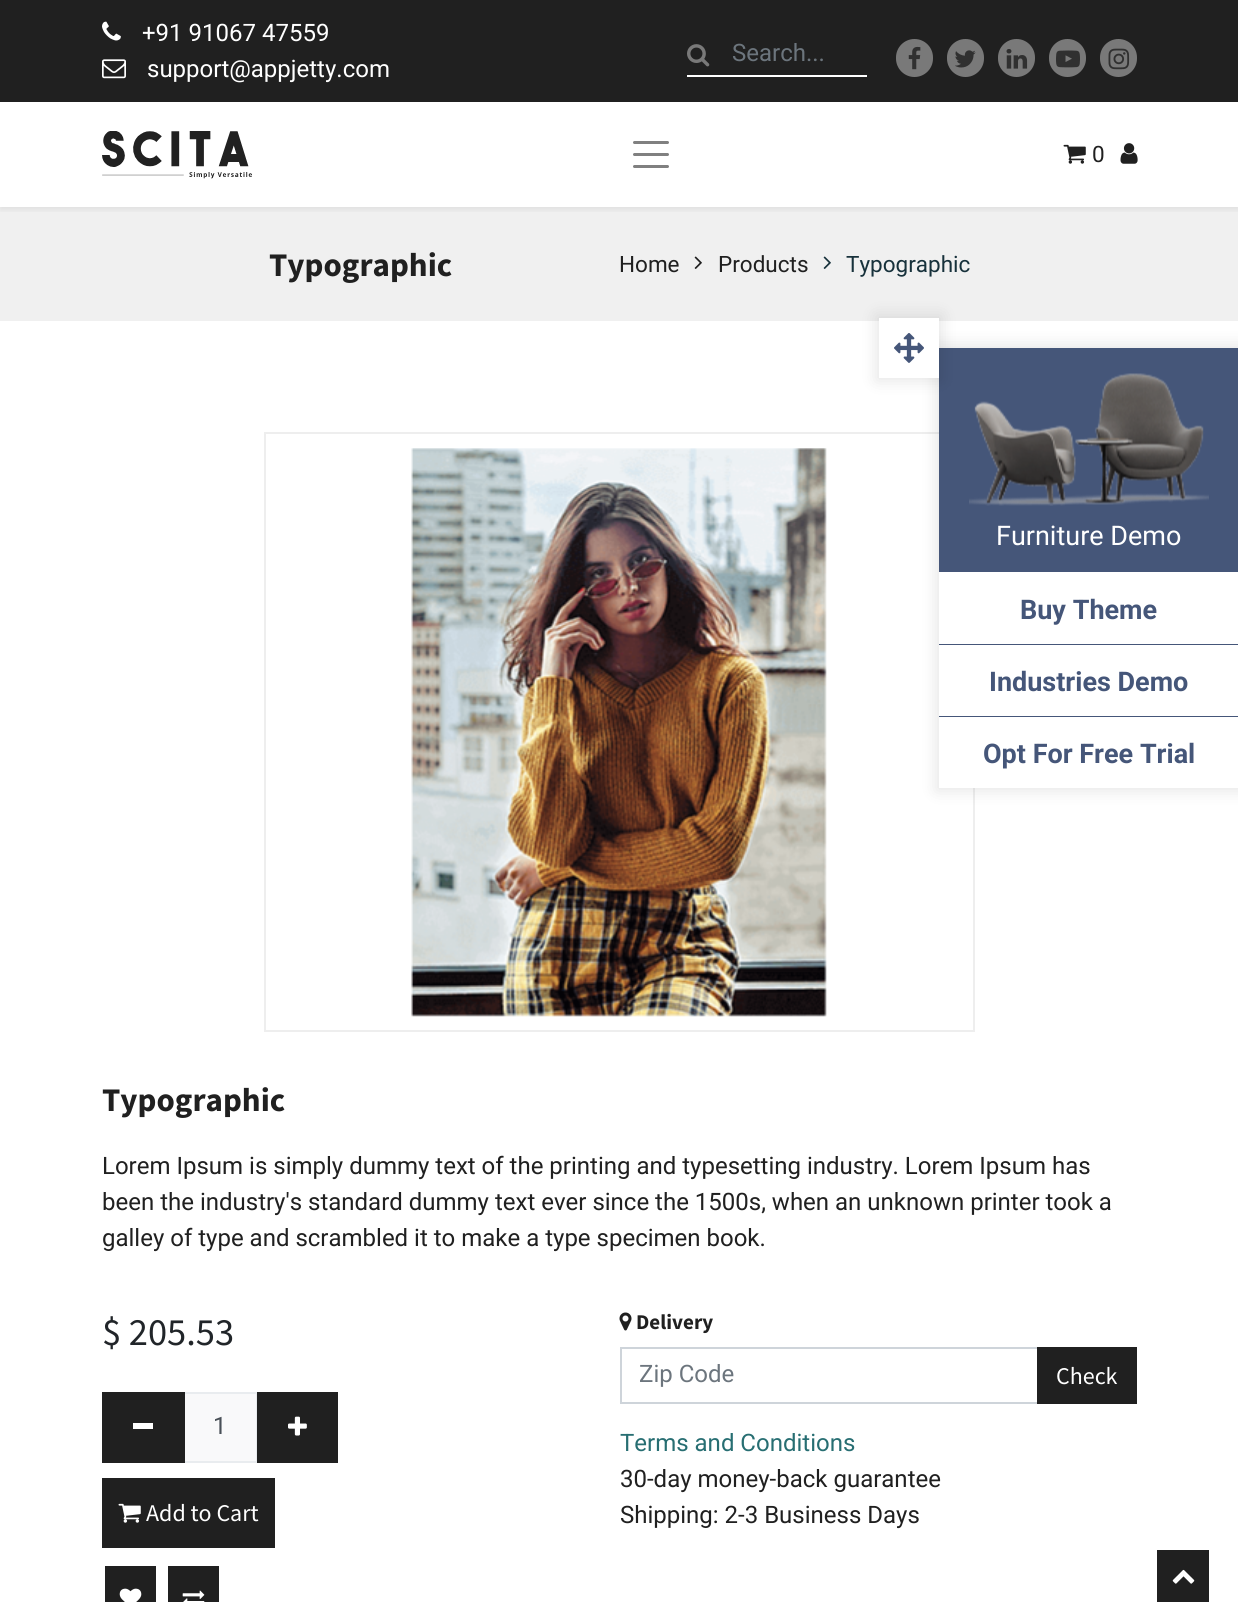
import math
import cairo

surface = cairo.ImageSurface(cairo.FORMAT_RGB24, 1238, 1602)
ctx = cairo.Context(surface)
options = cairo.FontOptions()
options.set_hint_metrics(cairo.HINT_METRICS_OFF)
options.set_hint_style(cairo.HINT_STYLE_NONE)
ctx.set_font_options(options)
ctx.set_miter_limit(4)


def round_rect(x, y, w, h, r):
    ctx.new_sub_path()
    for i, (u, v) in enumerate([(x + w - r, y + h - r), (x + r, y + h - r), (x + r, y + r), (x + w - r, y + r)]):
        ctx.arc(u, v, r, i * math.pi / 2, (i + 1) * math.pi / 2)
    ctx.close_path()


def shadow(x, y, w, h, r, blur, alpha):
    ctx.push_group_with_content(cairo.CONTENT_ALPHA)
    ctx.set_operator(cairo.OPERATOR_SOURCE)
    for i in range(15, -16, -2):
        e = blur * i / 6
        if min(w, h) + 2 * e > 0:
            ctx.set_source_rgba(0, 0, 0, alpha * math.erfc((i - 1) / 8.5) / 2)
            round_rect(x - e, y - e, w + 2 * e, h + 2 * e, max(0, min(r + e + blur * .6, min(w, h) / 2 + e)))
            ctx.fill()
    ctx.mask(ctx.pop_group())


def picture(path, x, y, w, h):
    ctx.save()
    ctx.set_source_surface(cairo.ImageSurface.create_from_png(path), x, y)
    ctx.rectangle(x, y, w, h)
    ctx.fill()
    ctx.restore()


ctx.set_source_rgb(1, 1, 1)
ctx.paint()
ctx.set_source_rgb(0.125, 0.125, 0.125)
ctx.rectangle(0, 0, 1238, 102)
ctx.fill()
picture("img1.png", 102, 21, 19, 20)
ctx.select_font_face("Roboto")
ctx.set_font_size(24)
ctx.set_source_rgb(1, 1, 1)
ctx.move_to(142, 41)
ctx.show_text("+91 91067 47559")
picture("img2.png", 102, 59, 24, 20)
ctx.move_to(147, 77)
ctx.show_text("support@appjetty.com")
picture("img3.png", 687, 44, 23, 23)
ctx.rectangle(687, 75, 180, 2)
ctx.fill()
ctx.set_source_rgb(0.424, 0.459, 0.49)
ctx.move_to(732, 61)
ctx.show_text("Search...")
ctx.set_source_rgb(0.475, 0.475, 0.475)
round_rect(896, 39, 37, 38, 18.5)
ctx.fill()
picture("img4.png", 908, 46, 13, 24)
round_rect(947, 39, 37, 38, 18.5)
ctx.fill()
picture("img5.png", 955, 50, 21, 18)
round_rect(998, 39, 37, 38, 18.5)
ctx.fill()
picture("img6.png", 1006, 49, 22, 20)
round_rect(1049, 39, 37, 38, 18.5)
ctx.fill()
picture("img7.png", 1056, 50, 24, 18)
round_rect(1100, 39, 37, 38, 18.5)
ctx.fill()
picture("img8.png", 1108, 48, 22, 22)
ctx.set_source_rgb(0.941, 0.941, 0.941)
ctx.rectangle(0, 207, 1238, 114)
ctx.fill()
ctx.save()
ctx.rectangle(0, 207, 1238, 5)
ctx.clip()
ctx.set_source_rgb(0, 0, 0)
shadow(0, 105, 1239, 105, 0, 3, 0.07)
ctx.restore()
picture("img9.png", 102, 131, 150, 48)
ctx.new_path()
ctx.move_to(634.5, 142.5)
ctx.line_to(667.5, 142.5)
ctx.move_to(634.5, 154.5)
ctx.line_to(667.5, 154.5)
ctx.move_to(634.5, 166.5)
ctx.line_to(667.5, 166.5)
ctx.set_source_rgb(0.502, 0.502, 0.502)
ctx.set_line_width(3)
ctx.set_line_cap(cairo.LINE_CAP_ROUND)
ctx.stroke()
picture("img10.png", 1063, 144, 23, 20)
ctx.set_font_size(22.5)
ctx.set_source_rgb(0.125, 0.125, 0.125)
ctx.move_to(1092, 162)
ctx.show_text("0")
picture("img11.png", 1120, 143, 18, 21)
ctx.select_font_face("Source Sans Pro", cairo.FONT_SLANT_NORMAL, cairo.FONT_WEIGHT_BOLD)
ctx.set_font_size(33)
ctx.move_to(269, 276)
ctx.show_text("Typographic")
ctx.select_font_face("Roboto")
ctx.set_font_size(22.5)
ctx.move_to(619, 272)
ctx.show_text("Home")
picture("img12.png", 694, 256, 8, 13)
ctx.move_to(718, 272)
ctx.show_text("Products")
picture("img13.png", 823, 256, 8, 13)
ctx.set_source_rgb(0.09, 0.192, 0.231)
ctx.move_to(846, 272)
ctx.show_text("Typographic")
ctx.rectangle(265, 433, 709, 598)
ctx.set_source_rgb(0.933, 0.933, 0.933)
ctx.set_line_width(2)
ctx.set_line_cap(cairo.LINE_CAP_BUTT)
ctx.stroke()
picture("img14.png", 411, 448, 416, 569)
ctx.select_font_face("Source Sans Pro", cairo.FONT_SLANT_NORMAL, cairo.FONT_WEIGHT_BOLD)
ctx.set_font_size(33)
ctx.set_source_rgb(0.125, 0.125, 0.125)
ctx.move_to(102, 1111)
ctx.show_text("Typographic")
ctx.select_font_face("Roboto")
ctx.set_font_size(24)
ctx.move_to(102, 1174)
ctx.show_text("Lorem Ipsum is simply dummy text of the printing and typesetting industry. Lorem Ipsum has")
ctx.move_to(102, 1210)
ctx.show_text("been the industry's standard dummy text ever since the 1500s, when an unknown printer took a")
ctx.move_to(102, 1246)
ctx.show_text("galley of type and scrambled it to make a type specimen book.")
ctx.select_font_face("Source Sans Pro")
ctx.set_font_size(38.5)
ctx.set_source_rgb(0.129, 0.145, 0.161)
ctx.move_to(102, 1345)
ctx.show_text("$ 205.53")
ctx.set_source_rgb(0.973, 0.976, 0.98)
ctx.rectangle(184, 1393, 73, 69)
ctx.fill_preserve()
ctx.set_source_rgb(0.914, 0.925, 0.937)
ctx.stroke()
ctx.set_source_rgb(0.125, 0.125, 0.125)
ctx.rectangle(102, 1392, 83, 71)
ctx.fill()
ctx.set_source_rgb(1, 1, 1)
ctx.rectangle(133, 1423, 20, 6)
ctx.fill()
ctx.select_font_face("Roboto")
ctx.set_font_size(24)
ctx.set_source_rgb(0.286, 0.314, 0.341)
ctx.move_to(213, 1434)
ctx.show_text("1")
ctx.set_source_rgb(0.125, 0.125, 0.125)
ctx.rectangle(257, 1392, 81, 71)
ctx.fill()
picture("img15.png", 288, 1416, 19, 20)
ctx.rectangle(102, 1478, 173, 70)
ctx.fill()
picture("img16.png", 118, 1503, 23, 20)
ctx.select_font_face("Source Sans Pro")
ctx.set_source_rgb(1, 1, 1)
ctx.move_to(146, 1521)
ctx.show_text("Add to Cart")
ctx.set_source_rgb(0.125, 0.125, 0.125)
ctx.rectangle(105, 1566, 51, 36)
ctx.fill()
picture("img17.png", 119, 1588, 23, 14)
ctx.rectangle(168, 1566, 51, 36)
ctx.fill()
picture("img18.png", 182, 1590, 23, 12)
picture("img19.png", 619, 1312, 13, 19)
ctx.select_font_face("Source Sans Pro", cairo.FONT_SLANT_NORMAL, cairo.FONT_WEIGHT_BOLD)
ctx.set_font_size(21)
ctx.move_to(636, 1329)
ctx.show_text("Delivery")
ctx.rectangle(621, 1348, 515, 55)
ctx.set_source_rgb(0.808, 0.831, 0.855)
ctx.stroke()
ctx.select_font_face("Roboto")
ctx.set_font_size(24)
ctx.set_source_rgb(0.424, 0.459, 0.49)
ctx.move_to(639, 1382)
ctx.show_text("Zip Code")
ctx.set_source_rgb(0.125, 0.125, 0.125)
ctx.rectangle(1037, 1347, 100, 57)
ctx.fill()
ctx.select_font_face("Source Sans Pro")
ctx.set_source_rgb(1, 1, 1)
ctx.move_to(1056, 1384)
ctx.show_text("Check")
ctx.select_font_face("Roboto")
ctx.set_source_rgb(0.153, 0.431, 0.447)
ctx.move_to(620, 1451)
ctx.show_text("Terms and Conditions")
ctx.set_source_rgb(0.125, 0.125, 0.125)
ctx.move_to(620, 1487)
ctx.show_text("30-day money-back guarantee")
ctx.move_to(620, 1523)
ctx.show_text("Shipping: 2-3 Business Days")
ctx.set_source_rgb(0, 0, 0)
shadow(936, 345, 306, 446, 0, 7.5, 0.1)
ctx.set_source_rgb(0.271, 0.337, 0.475)
ctx.rectangle(939, 348, 299, 224)
ctx.fill()
ctx.set_source_rgb(0, 0, 0)
shadow(876, 315, 66, 66, 0, 7.5, 0.1)
ctx.set_source_rgb(1, 1, 1)
ctx.rectangle(879, 318, 60, 60)
ctx.fill()
picture("img20.png", 894, 333, 30, 30)
picture("img21.png", 969, 373, 240, 133)
ctx.set_font_size(27)
ctx.move_to(996, 545)
ctx.show_text("Furniture Demo")
ctx.rectangle(939, 572, 299, 72)
ctx.fill()
ctx.set_source_rgb(0.271, 0.337, 0.475)
ctx.rectangle(939, 644, 299, 1)
ctx.fill()
ctx.select_font_face("Roboto", cairo.FONT_SLANT_NORMAL, cairo.FONT_WEIGHT_BOLD)
ctx.move_to(1020, 619)
ctx.show_text("Buy Theme")
ctx.set_source_rgb(1, 1, 1)
ctx.rectangle(939, 645, 299, 71)
ctx.fill()
ctx.set_source_rgb(0.271, 0.337, 0.475)
ctx.rectangle(939, 716, 299, 1)
ctx.fill()
ctx.move_to(989, 691)
ctx.show_text("Industries Demo")
ctx.set_source_rgb(1, 1, 1)
ctx.rectangle(939, 717, 299, 71)
ctx.fill()
ctx.set_source_rgb(0.271, 0.337, 0.475)
ctx.move_to(983, 763)
ctx.show_text("Opt For Free Trial")
ctx.set_source_rgb(0.125, 0.125, 0.125)
ctx.rectangle(1157, 1550, 52, 52)
ctx.fill()
picture("img22.png", 1172, 1569, 23, 15)
surface.write_to_png("page.png")
